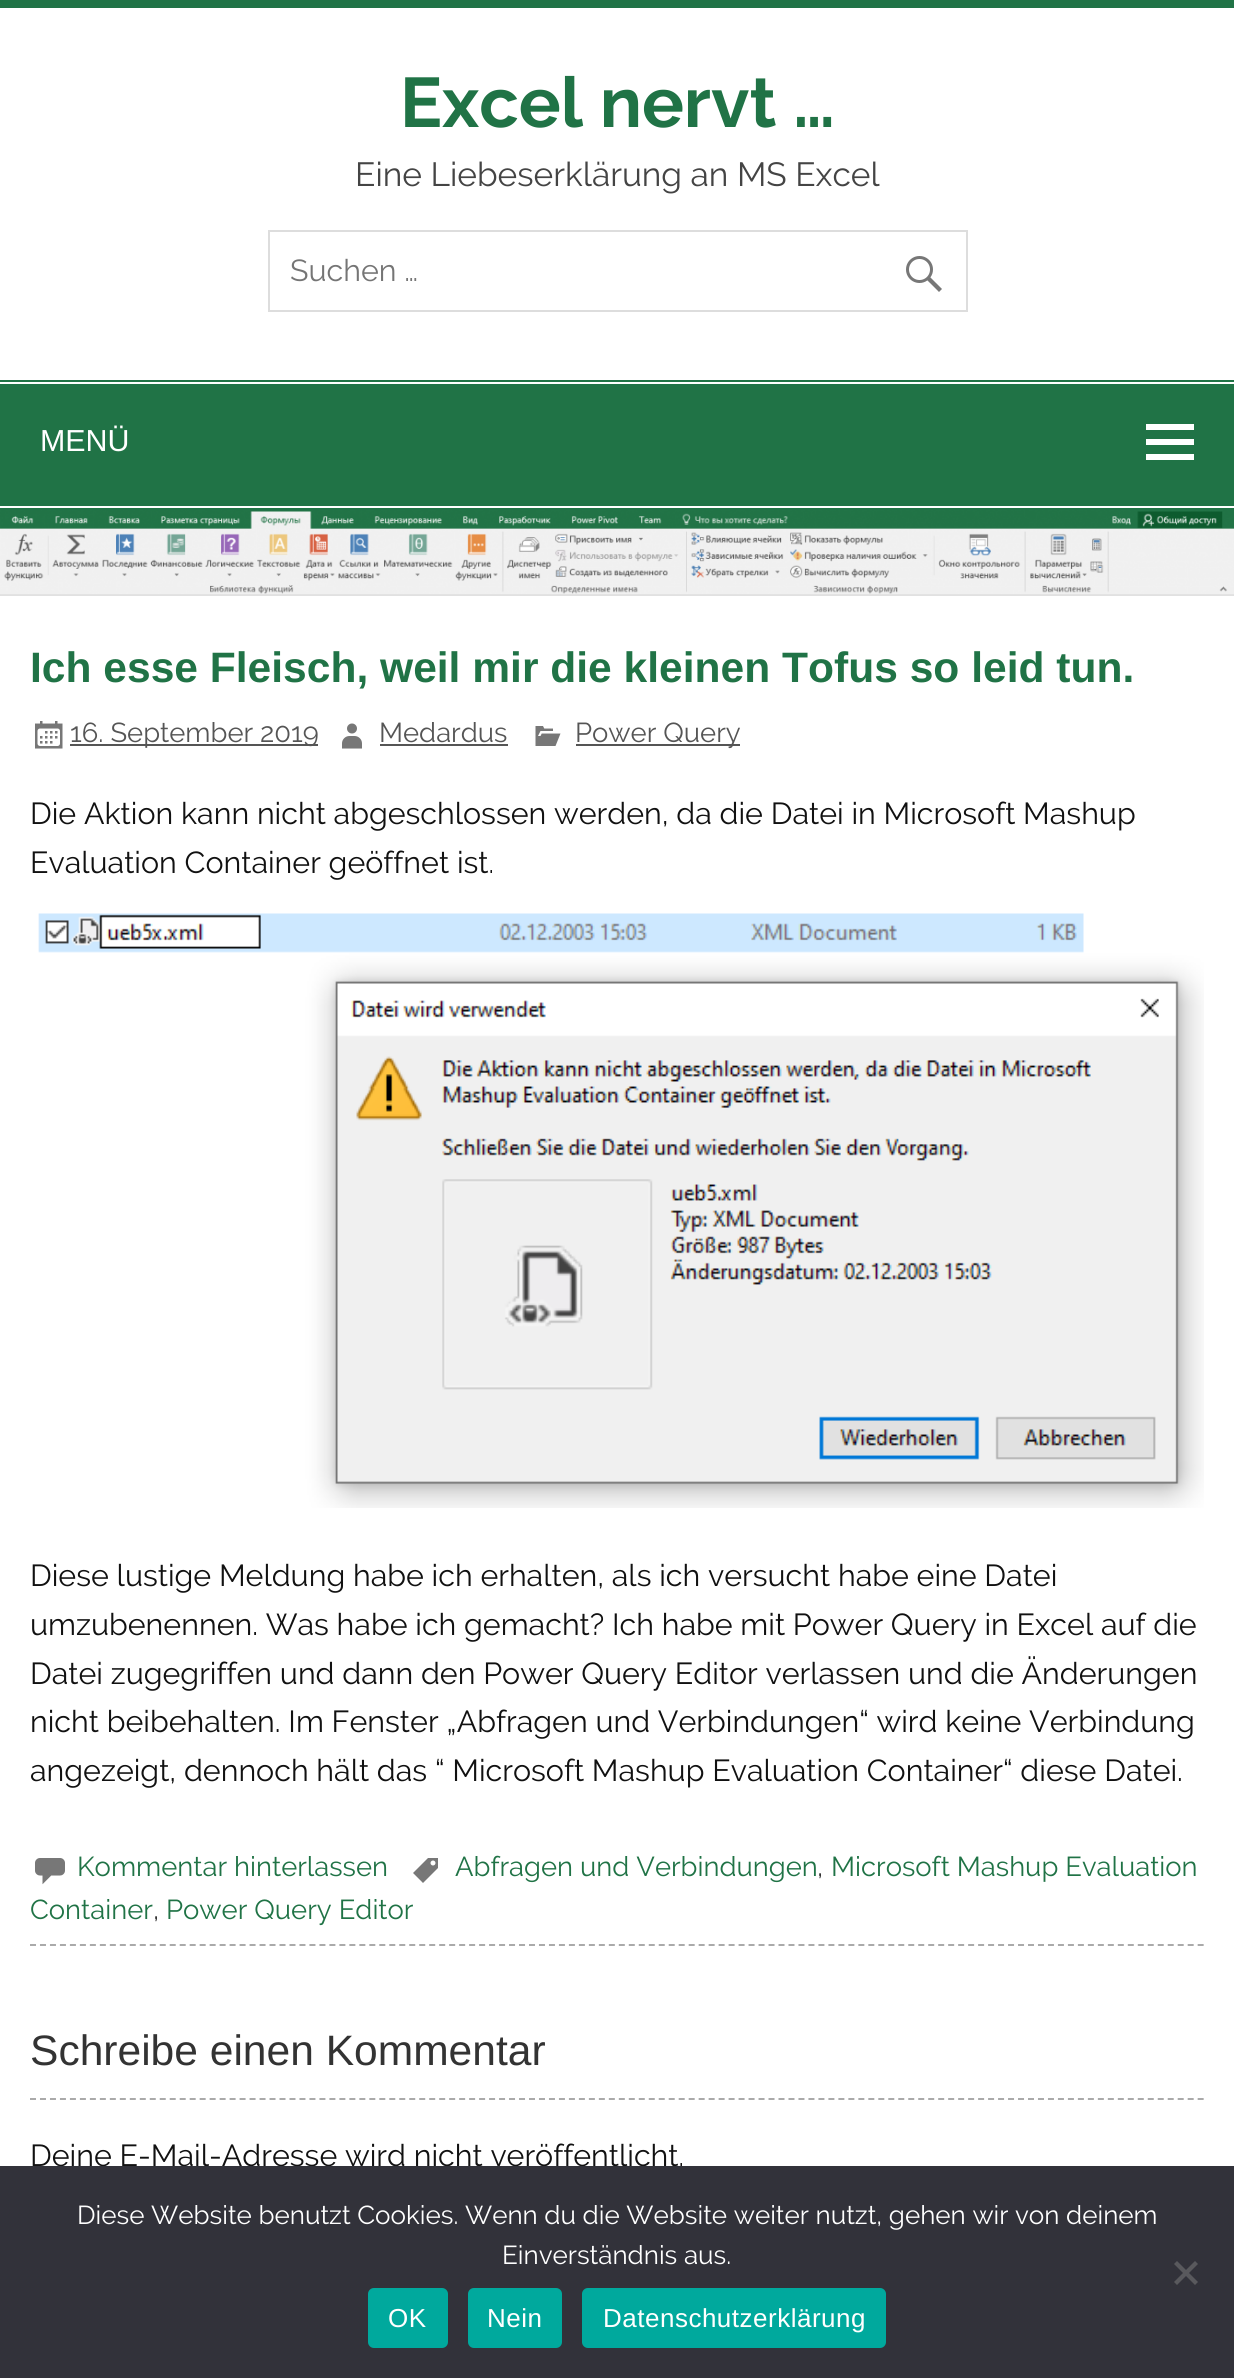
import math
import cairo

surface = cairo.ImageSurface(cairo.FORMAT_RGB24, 1234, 2378)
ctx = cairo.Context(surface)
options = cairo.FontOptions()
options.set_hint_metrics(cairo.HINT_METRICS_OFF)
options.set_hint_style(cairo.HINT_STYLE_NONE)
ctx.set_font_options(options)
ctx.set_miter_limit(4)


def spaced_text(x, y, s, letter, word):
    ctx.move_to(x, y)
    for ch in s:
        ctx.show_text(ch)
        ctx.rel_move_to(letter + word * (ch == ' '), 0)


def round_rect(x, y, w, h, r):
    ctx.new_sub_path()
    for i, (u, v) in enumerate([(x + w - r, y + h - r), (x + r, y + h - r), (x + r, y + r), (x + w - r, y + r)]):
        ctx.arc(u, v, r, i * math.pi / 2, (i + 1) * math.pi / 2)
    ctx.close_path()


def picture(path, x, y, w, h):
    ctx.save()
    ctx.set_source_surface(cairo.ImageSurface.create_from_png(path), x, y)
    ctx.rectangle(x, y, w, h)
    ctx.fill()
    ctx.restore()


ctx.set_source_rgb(1, 1, 1)
ctx.paint()
ctx.set_source_rgb(0.125, 0.451, 0.275)
ctx.rectangle(0, 0, 1234, 8)
ctx.fill()
ctx.select_font_face("Raleway", cairo.FONT_SLANT_NORMAL, cairo.FONT_WEIGHT_BOLD)
ctx.set_font_size(70)
ctx.move_to(400, 127)
ctx.show_text("Excel nervt …")
ctx.select_font_face("Raleway")
ctx.set_font_size(33.5)
ctx.set_source_rgb(0.267, 0.267, 0.267)
ctx.move_to(355, 186)
ctx.show_text("Eine Liebeserklärung an MS Excel")
ctx.rectangle(269, 231, 698, 80)
ctx.set_source_rgb(0.867, 0.867, 0.867)
ctx.stroke()
ctx.set_font_size(30.4)
ctx.set_source_rgb(0.459, 0.459, 0.459)
ctx.move_to(290, 281)
ctx.show_text("Suchen …")
picture("img1.png", 906, 256, 36, 36)
ctx.set_source_rgb(0.125, 0.451, 0.275)
ctx.rectangle(0, 380, 1234, 2)
ctx.fill()
ctx.rectangle(0, 508, 1234, 2)
ctx.fill()
ctx.rectangle(0, 384, 1234, 122)
ctx.fill()
ctx.select_font_face("Liberation Sans")
ctx.set_source_rgb(1, 1, 1)
ctx.move_to(40, 451)
ctx.show_text("MENÜ")
ctx.new_path()
ctx.move_to(1146, 460)
ctx.line_to(1146, 454)
ctx.line_to(1194, 454)
ctx.line_to(1194, 460)
ctx.close_path()
ctx.move_to(1146, 424)
ctx.line_to(1194, 424)
ctx.line_to(1194, 430)
ctx.line_to(1146, 430)
ctx.close_path()
ctx.move_to(1146, 445)
ctx.line_to(1146, 439)
ctx.line_to(1194, 439)
ctx.line_to(1194, 445)
ctx.close_path()
ctx.fill()
picture("img2.png", 0, 510, 1234, 86)
ctx.new_path()
ctx.move_to(30, 1945)
ctx.line_to(1204, 1945)
ctx.set_source_rgb(0.667, 0.667, 0.667)
ctx.set_dash([6, 3.98])
ctx.stroke()
ctx.select_font_face("Liberation Sans", cairo.FONT_SLANT_NORMAL, cairo.FONT_WEIGHT_BOLD)
ctx.set_font_size(42.55)
ctx.set_source_rgb(0.125, 0.451, 0.275)
ctx.move_to(30, 682)
ctx.show_text("Ich esse Fleisch, weil mir die kleinen Tofus so leid tun.")
picture("img3.png", 35, 721, 28, 28)
ctx.set_source_rgb(0.333, 0.333, 0.333)
ctx.rectangle(70, 744, 248, 2)
ctx.fill()
ctx.select_font_face("Raleway")
ctx.set_font_size(27.4)
ctx.move_to(70, 742)
ctx.show_text("16. September 2019")
picture("img4.png", 342, 723, 20, 26)
ctx.move_to(379, 742)
ctx.show_text("Medardus")
ctx.rectangle(380, 744, 128, 2)
ctx.fill()
picture("img5.png", 535, 726, 26, 20)
ctx.rectangle(576, 744, 164, 2)
ctx.fill()
ctx.move_to(575, 742)
ctx.show_text("Power Query")
ctx.set_font_size(30.4)
ctx.set_source_rgb(0.067, 0.067, 0.067)
ctx.move_to(30, 824)
ctx.show_text("Die Aktion kann nicht abgeschlossen werden, da die Datei in Microsoft Mashup")
ctx.move_to(30, 873)
ctx.show_text("Evaluation Container geöffnet ist.")
picture("img6.png", 38, 913, 1166, 595)
ctx.move_to(30, 1586)
ctx.show_text("Diese lustige Meldung habe ich erhalten, als ich versucht habe eine Datei")
ctx.move_to(30, 1635)
ctx.show_text("umzubenennen. Was habe ich gemacht? Ich habe mit Power Query in Excel auf die")
ctx.move_to(30, 1684)
ctx.show_text("Datei zugegriffen und dann den Power Query Editor verlassen und die Änderungen")
ctx.move_to(30, 1732)
ctx.show_text("nicht beibehalten. Im Fenster „Abfragen und Verbindungen“ wird keine Verbindung")
ctx.move_to(30, 1781)
ctx.show_text("angezeigt, dennoch hält das “ Microsoft Mashup Evaluation Container“ diese Datei.")
picture("img7.png", 413, 1858, 25, 25)
ctx.set_font_size(27.4)
ctx.set_source_rgb(0.125, 0.451, 0.275)
ctx.move_to(455, 1876)
ctx.show_text("Abfragen und Verbindungen")
ctx.set_source_rgb(0.2, 0.2, 0.2)
ctx.move_to(817, 1876)
ctx.show_text(",")
ctx.set_source_rgb(0.125, 0.451, 0.275)
ctx.move_to(831, 1876)
ctx.show_text("Microsoft Mashup Evaluation")
ctx.move_to(30, 1919)
ctx.show_text("Container")
ctx.set_source_rgb(0.2, 0.2, 0.2)
ctx.move_to(153, 1919)
ctx.show_text(",")
ctx.set_source_rgb(0.125, 0.451, 0.275)
ctx.move_to(166, 1919)
ctx.show_text("Power Query Editor")
picture("img8.png", 35, 1858, 30, 27)
ctx.move_to(77, 1876)
ctx.show_text("Kommentar hinterlassen")
ctx.new_path()
ctx.move_to(30, 2099)
ctx.line_to(1204, 2099)
ctx.set_source_rgb(0.667, 0.667, 0.667)
ctx.stroke()
ctx.select_font_face("Liberation Sans")
ctx.set_font_size(42.55)
ctx.set_source_rgb(0.2, 0.2, 0.2)
ctx.move_to(30, 2065)
ctx.show_text("Schreibe einen Kommentar")
ctx.select_font_face("Raleway")
ctx.set_font_size(30.4)
ctx.set_source_rgb(0.067, 0.067, 0.067)
ctx.move_to(30, 2166)
ctx.show_text("Deine E-Mail-Adresse wird nicht veröffentlicht.")
ctx.set_source_rgb(0.196, 0.196, 0.227)
ctx.rectangle(0, 2166, 1234, 212)
ctx.fill()
ctx.set_font_size(26)
ctx.set_source_rgb(1, 1, 1)
ctx.move_to(77, 2224)
ctx.show_text("Diese Website benutzt Cookies. Wenn du die Website weiter nutzt, gehen wir von deinem")
ctx.move_to(502, 2264)
ctx.show_text("Einverständnis aus.")
ctx.set_source_rgb(0.349, 0.349, 0.365)
ctx.new_path()
ctx.move_to(1195, 2261)
ctx.line_to(1198, 2264)
ctx.line_to(1177, 2285)
ctx.line_to(1174, 2282)
ctx.close_path()
ctx.fill()
ctx.new_path()
ctx.move_to(1174, 2264)
ctx.line_to(1177, 2261)
ctx.line_to(1198, 2282)
ctx.line_to(1195, 2285)
ctx.close_path()
ctx.fill()
ctx.set_source_rgb(0, 0.663, 0.616)
round_rect(368, 2288, 80, 60, 6)
ctx.fill()
ctx.select_font_face("Liberation Sans")
ctx.set_source_rgb(1, 1, 1)
spaced_text(388, 2327, "OK", 0.5, 0)
ctx.set_source_rgb(0, 0.663, 0.616)
round_rect(468, 2288, 94, 60, 6)
ctx.fill()
ctx.set_source_rgb(1, 1, 1)
spaced_text(487, 2327, "Nein", 0.5, 0)
ctx.set_source_rgb(0, 0.663, 0.616)
round_rect(582, 2288, 304, 60, 6)
ctx.fill()
ctx.set_source_rgb(1, 1, 1)
spaced_text(603, 2327, "Datenschutzerklärung", 0.5, 0)
surface.write_to_png("page.png")
